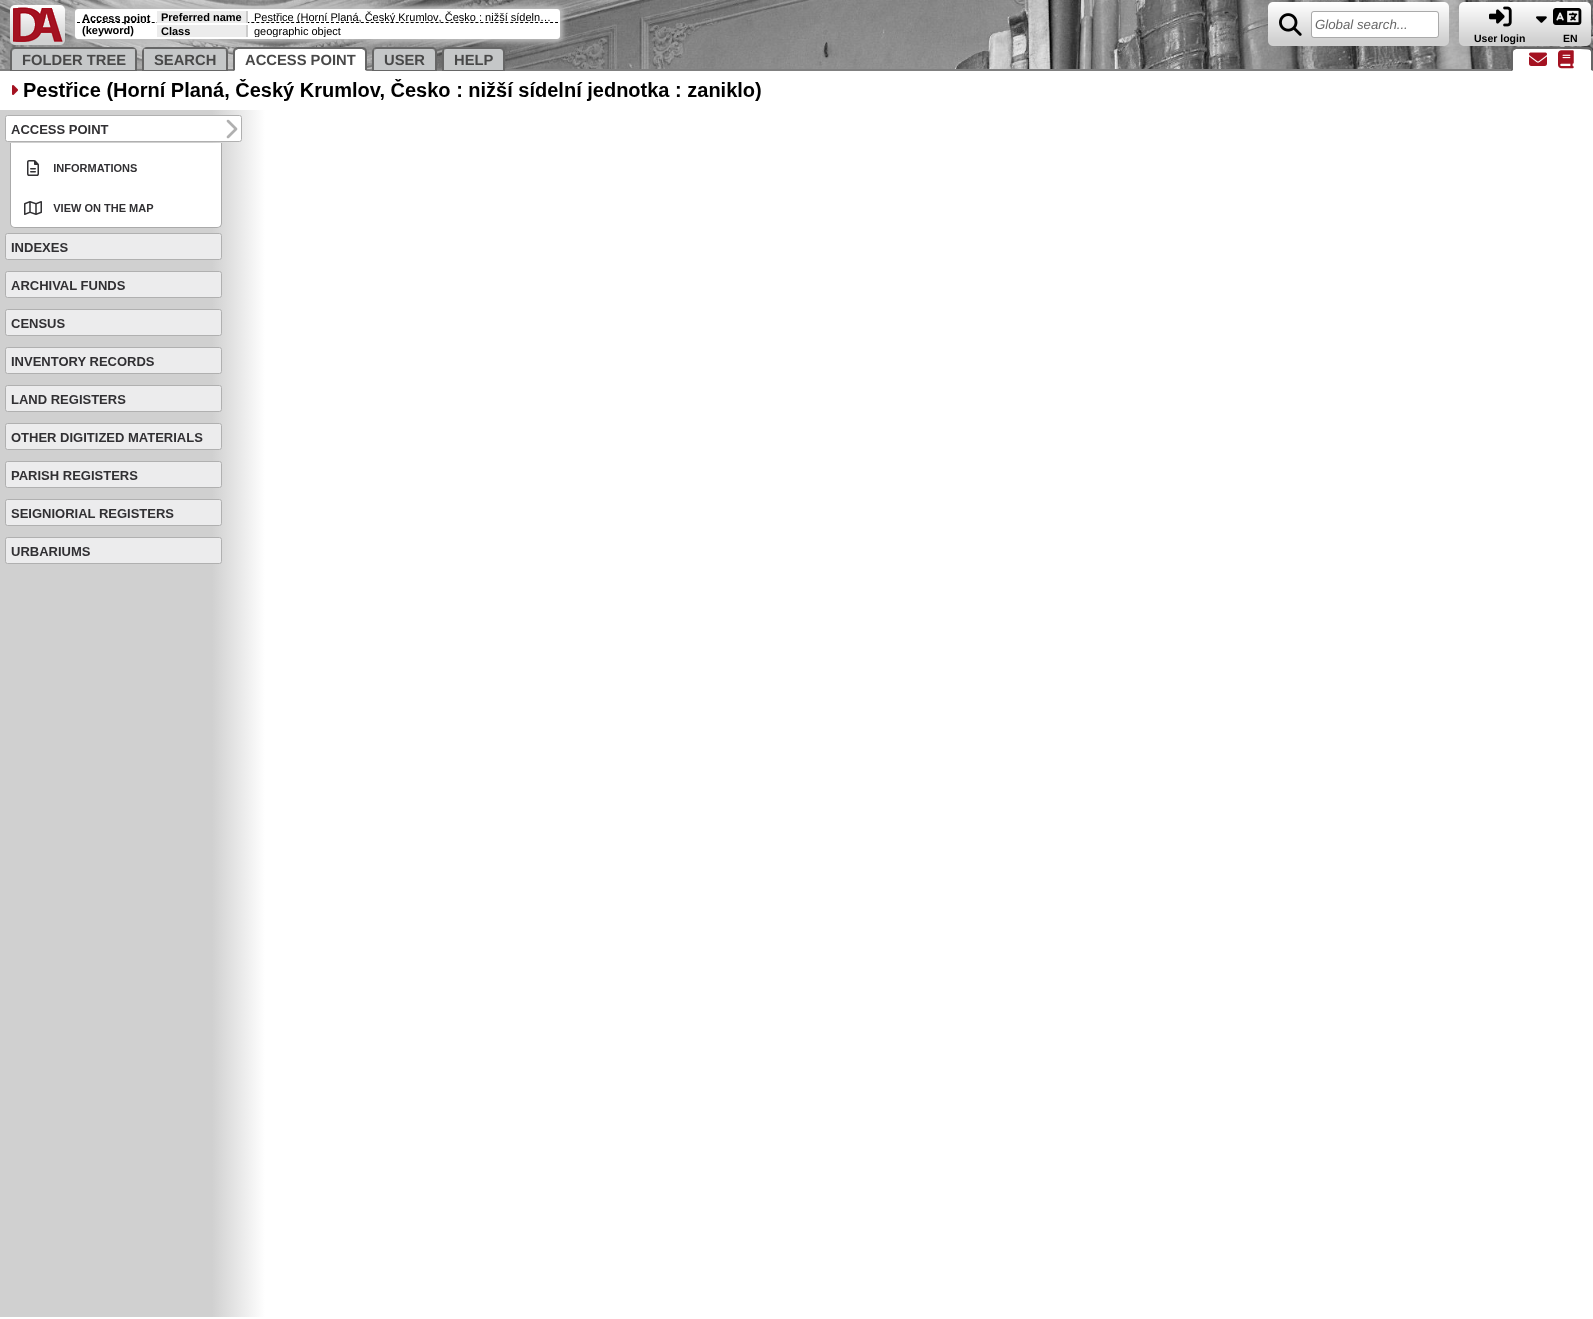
import math
import cairo

surface = cairo.ImageSurface(cairo.FORMAT_RGB24, 1593, 1319)
ctx = cairo.Context(surface)
options = cairo.FontOptions()
options.set_hint_metrics(cairo.HINT_METRICS_OFF)
options.set_hint_style(cairo.HINT_STYLE_NONE)
ctx.set_font_options(options)
ctx.set_miter_limit(4)


def round_rect(x, y, w, h, r):
    ctx.new_sub_path()
    for i, (u, v) in enumerate([(x + w - r, y + h - r), (x + r, y + h - r), (x + r, y + r), (x + w - r, y + r)]):
        ctx.arc(u, v, r, i * math.pi / 2, (i + 1) * math.pi / 2)
    ctx.close_path()


def shadow(x, y, w, h, r, blur, alpha):
    ctx.push_group_with_content(cairo.CONTENT_ALPHA)
    ctx.set_operator(cairo.OPERATOR_SOURCE)
    for i in range(15, -16, -2):
        e = blur * i / 6
        if min(w, h) + 2 * e > 0:
            ctx.set_source_rgba(0, 0, 0, alpha * math.erfc((i - 1) / 8.5) / 2)
            round_rect(x - e, y - e, w + 2 * e, h + 2 * e, max(0, min(r + e + blur * .6, min(w, h) / 2 + e)))
            ctx.fill()
    ctx.mask(ctx.pop_group())


def picture(path, x, y, w, h):
    ctx.save()
    ctx.set_source_surface(cairo.ImageSurface.create_from_png(path), x, y)
    ctx.rectangle(x, y, w, h)
    ctx.fill()
    ctx.restore()


ctx.set_source_rgb(1, 1, 1)
ctx.paint()
picture("img1.png", 0, 0, 1593, 69)
ctx.set_source_rgb(0.502, 0.502, 0.502)
ctx.rectangle(0, 69, 1593, 2)
ctx.fill()
gradient = cairo.LinearGradient(38, 5, 38, 45)
gradient.add_color_stop_rgba(0, 1, 1, 1, 1)
gradient.add_color_stop_rgba(0.89, 0.816, 0.816, 0.816, 1)
gradient.add_color_stop_rgba(1, 0.816, 0.816, 0.816, 1)
ctx.set_source(gradient)
round_rect(10, 5, 55, 40, 5)
ctx.fill()
picture("img2.png", 13, 7, 50, 35)
ctx.set_source_rgb(0.733, 0.733, 0.733)
shadow(72, 6, 491, 36, 6, 2.5, 1)
ctx.set_source_rgb(1, 1, 1)
round_rect(75, 9, 485, 30, 3)
ctx.fill()
ctx.new_path()
ctx.move_to(77, 22.5)
ctx.line_to(558, 22.5)
ctx.set_source_rgb(0, 0, 0)
ctx.set_line_width(1)
ctx.set_dash([3, 1.98])
ctx.stroke()
ctx.select_font_face("Liberation Sans", cairo.FONT_SLANT_NORMAL, cairo.FONT_WEIGHT_BOLD)
ctx.set_font_size(11)
ctx.move_to(82, 22)
ctx.show_text("Access point")
ctx.move_to(82, 34)
ctx.show_text("(keyword)")
ctx.set_source_rgb(0.925, 0.925, 0.925)
ctx.rectangle(157, 11, 89, 12)
ctx.fill()
ctx.set_source_rgb(0.8, 0.8, 0.8)
ctx.rectangle(246, 11, 2, 12)
ctx.fill()
ctx.set_source_rgb(0, 0, 0)
ctx.move_to(161, 21)
ctx.show_text("Preferred name")
ctx.save()
ctx.rectangle(250, 11, 308, 12)
ctx.clip()
ctx.select_font_face("Liberation Sans")
ctx.move_to(254, 21)
ctx.show_text("Pestřice (Horní Planá, Český Krumlov, Česko : nižší sídeln…")
ctx.restore()
ctx.set_source_rgb(0.925, 0.925, 0.925)
ctx.rectangle(157, 25, 89, 12)
ctx.fill()
ctx.set_source_rgb(0.8, 0.8, 0.8)
ctx.rectangle(246, 25, 2, 12)
ctx.fill()
ctx.set_source_rgb(0, 0, 0)
ctx.move_to(161, 35)
ctx.show_text("Class")
ctx.save()
ctx.rectangle(250, 25, 308, 12)
ctx.clip()
ctx.select_font_face("Liberation Sans")
ctx.move_to(254, 35)
ctx.show_text("geographic object")
ctx.restore()
gradient = cairo.LinearGradient(1359, 2, 1359, 46)
gradient.add_color_stop_rgba(0, 1, 1, 1, 1)
gradient.add_color_stop_rgba(0.89, 0.816, 0.816, 0.816, 1)
gradient.add_color_stop_rgba(1, 0.816, 0.816, 0.816, 1)
ctx.set_source(gradient)
round_rect(1268, 2, 181, 44, 5)
ctx.fill()
picture("img3.png", 1279, 13, 23, 23)
ctx.set_source_rgb(1, 1, 1)
round_rect(1311.5, 11.5, 127, 26, 2.5)
ctx.fill_preserve()
ctx.set_source_rgb(0.667, 0.667, 0.667)
ctx.set_dash([])
ctx.stroke()
ctx.select_font_face("Liberation Sans", cairo.FONT_SLANT_ITALIC)
ctx.set_font_size(13.25)
ctx.set_source_rgb(0.4, 0.4, 0.4)
ctx.move_to(1315, 29)
ctx.show_text("Global search...")
gradient = cairo.LinearGradient(1525, 2, 1525, 46)
gradient.add_color_stop_rgba(0, 1, 1, 1, 1)
gradient.add_color_stop_rgba(0.89, 0.816, 0.816, 0.816, 1)
gradient.add_color_stop_rgba(1, 0.816, 0.816, 0.816, 1)
ctx.set_source(gradient)
round_rect(1459, 2, 132, 44, 5)
ctx.fill()
picture("img4.png", 1489, 6, 23, 21)
ctx.select_font_face("Liberation Sans", cairo.FONT_SLANT_NORMAL, cairo.FONT_WEIGHT_BOLD)
ctx.set_font_size(10.5)
ctx.set_source_rgb(0, 0, 0)
ctx.move_to(1474, 42)
ctx.show_text("User login")
picture("img5.png", 1536, 16, 11, 7)
picture("img6.png", 1553, 8, 29, 17)
ctx.move_to(1563, 42)
ctx.show_text("EN")
ctx.set_source_rgb(0.773, 0.78, 0.784)
ctx.new_path()
ctx.move_to(15, 49)
ctx.line_to(132, 49)
ctx.curve_to(133.5, 49, 135, 50.5, 135, 52)
ctx.line_to(135, 70)
ctx.line_to(12, 70)
ctx.line_to(12, 52)
ctx.curve_to(12, 50.5, 13.5, 49, 15, 49)
ctx.close_path()
ctx.fill()
ctx.new_path()
ctx.move_to(15, 47.5)
ctx.line_to(132, 47.5)
ctx.curve_to(134.5, 47.5, 136.5, 49.5, 136.5, 52)
ctx.line_to(136.5, 70.5)
ctx.line_to(10.5, 70.5)
ctx.line_to(10.5, 52)
ctx.curve_to(10.5, 49.5, 12.5, 47.5, 15, 47.5)
ctx.close_path()
ctx.set_source_rgb(0.4, 0.4, 0.4)
ctx.stroke()
ctx.rectangle(13, 48, 122, 1)
ctx.fill()
ctx.rectangle(135, 50, 1, 21)
ctx.fill()
ctx.rectangle(11, 50, 1, 21)
ctx.fill()
ctx.set_font_size(14.75)
ctx.set_source_rgb(0.282, 0.282, 0.282)
ctx.move_to(22, 65)
ctx.show_text("FOLDER TREE")
ctx.set_source_rgb(0.773, 0.78, 0.784)
ctx.new_path()
ctx.move_to(147, 49)
ctx.line_to(223, 49)
ctx.curve_to(224.5, 49, 226, 50.5, 226, 52)
ctx.line_to(226, 70)
ctx.line_to(144, 70)
ctx.line_to(144, 52)
ctx.curve_to(144, 50.5, 145.5, 49, 147, 49)
ctx.close_path()
ctx.fill()
ctx.new_path()
ctx.move_to(147, 47.5)
ctx.line_to(223, 47.5)
ctx.curve_to(225.5, 47.5, 227.5, 49.5, 227.5, 52)
ctx.line_to(227.5, 70.5)
ctx.line_to(142.5, 70.5)
ctx.line_to(142.5, 52)
ctx.curve_to(142.5, 49.5, 144.5, 47.5, 147, 47.5)
ctx.close_path()
ctx.set_source_rgb(0.4, 0.4, 0.4)
ctx.stroke()
ctx.rectangle(145, 48, 81, 1)
ctx.fill()
ctx.rectangle(226, 50, 1, 21)
ctx.fill()
ctx.rectangle(143, 50, 1, 21)
ctx.fill()
ctx.set_source_rgb(0.282, 0.282, 0.282)
ctx.move_to(154, 65)
ctx.show_text("SEARCH")
ctx.set_source_rgb(1, 1, 1)
ctx.new_path()
ctx.move_to(238, 49)
ctx.line_to(362, 49)
ctx.curve_to(363.5, 49, 365, 50.5, 365, 52)
ctx.line_to(365, 70)
ctx.line_to(235, 70)
ctx.line_to(235, 52)
ctx.curve_to(235, 50.5, 236.5, 49, 238, 49)
ctx.close_path()
ctx.fill()
ctx.set_source_rgb(0.4, 0.4, 0.4)
ctx.new_path()
ctx.move_to(238, 47)
ctx.curve_to(236, 47, 235, 48, 234, 48)
ctx.line_to(236, 50)
ctx.line_to(238, 49)
ctx.line_to(362, 49)
ctx.line_to(364, 50)
ctx.line_to(366, 48)
ctx.curve_to(365, 48, 364, 47, 362, 47)
ctx.close_path()
ctx.fill()
ctx.new_path()
ctx.move_to(367, 71)
ctx.line_to(367, 52)
ctx.curve_to(367, 50.5, 366.5, 49, 365.5, 48.5)
ctx.line_to(364, 50)
ctx.curve_to(365, 50, 365, 51, 365, 52)
ctx.line_to(365, 70)
ctx.close_path()
ctx.fill()
ctx.set_source_rgb(1, 1, 1)
ctx.new_path()
ctx.move_to(367, 71)
ctx.line_to(365, 70)
ctx.line_to(235, 70)
ctx.line_to(233, 71)
ctx.close_path()
ctx.fill()
ctx.set_source_rgb(0.4, 0.4, 0.4)
ctx.new_path()
ctx.move_to(233, 71)
ctx.line_to(235, 70)
ctx.line_to(235, 52)
ctx.curve_to(235, 51, 235, 50, 236, 50)
ctx.line_to(234.5, 48.5)
ctx.curve_to(233.5, 49, 233, 50.5, 233, 52)
ctx.close_path()
ctx.fill()
ctx.set_source_rgb(0.282, 0.282, 0.282)
ctx.move_to(245, 65)
ctx.show_text("ACCESS POINT")
ctx.set_source_rgb(0.773, 0.78, 0.784)
ctx.new_path()
ctx.move_to(377, 49)
ctx.line_to(432, 49)
ctx.curve_to(433.5, 49, 435, 50.5, 435, 52)
ctx.line_to(435, 70)
ctx.line_to(374, 70)
ctx.line_to(374, 52)
ctx.curve_to(374, 50.5, 375.5, 49, 377, 49)
ctx.close_path()
ctx.fill()
ctx.new_path()
ctx.move_to(377, 47.5)
ctx.line_to(432, 47.5)
ctx.curve_to(434.5, 47.5, 436.5, 49.5, 436.5, 52)
ctx.line_to(436.5, 70.5)
ctx.line_to(372.5, 70.5)
ctx.line_to(372.5, 52)
ctx.curve_to(372.5, 49.5, 374.5, 47.5, 377, 47.5)
ctx.close_path()
ctx.set_source_rgb(0.4, 0.4, 0.4)
ctx.stroke()
ctx.rectangle(375, 48, 60, 1)
ctx.fill()
ctx.rectangle(435, 50, 1, 21)
ctx.fill()
ctx.rectangle(373, 50, 1, 21)
ctx.fill()
ctx.set_source_rgb(0.282, 0.282, 0.282)
ctx.move_to(384, 65)
ctx.show_text("USER")
ctx.set_source_rgb(0.773, 0.78, 0.784)
ctx.new_path()
ctx.move_to(447, 49)
ctx.line_to(500, 49)
ctx.curve_to(501.5, 49, 503, 50.5, 503, 52)
ctx.line_to(503, 70)
ctx.line_to(444, 70)
ctx.line_to(444, 52)
ctx.curve_to(444, 50.5, 445.5, 49, 447, 49)
ctx.close_path()
ctx.fill()
ctx.new_path()
ctx.move_to(447, 47.5)
ctx.line_to(500, 47.5)
ctx.curve_to(502.5, 47.5, 504.5, 49.5, 504.5, 52)
ctx.line_to(504.5, 70.5)
ctx.line_to(442.5, 70.5)
ctx.line_to(442.5, 52)
ctx.curve_to(442.5, 49.5, 444.5, 47.5, 447, 47.5)
ctx.close_path()
ctx.set_source_rgb(0.4, 0.4, 0.4)
ctx.stroke()
ctx.rectangle(445, 48, 58, 1)
ctx.fill()
ctx.rectangle(503, 50, 1, 21)
ctx.fill()
ctx.rectangle(443, 50, 1, 21)
ctx.fill()
ctx.set_source_rgb(0.282, 0.282, 0.282)
ctx.move_to(454, 65)
ctx.show_text("HELP")
ctx.set_source_rgb(1, 1, 1)
ctx.new_path()
ctx.move_to(1516, 49)
ctx.line_to(1588, 49)
ctx.curve_to(1589.5, 49, 1591, 50.5, 1591, 52)
ctx.line_to(1591, 70)
ctx.line_to(1513, 70)
ctx.line_to(1513, 52)
ctx.curve_to(1513, 50.5, 1514.5, 49, 1516, 49)
ctx.close_path()
ctx.fill()
ctx.set_source_rgb(0.4, 0.4, 0.4)
ctx.new_path()
ctx.move_to(1516, 47)
ctx.curve_to(1514, 47, 1513, 48, 1512, 48)
ctx.line_to(1514, 50)
ctx.line_to(1516, 49)
ctx.line_to(1528, 49)
ctx.curve_to(1535, 49, 1588, 48, 1590, 50)
ctx.line_to(1592, 48)
ctx.curve_to(1591, 48, 1590, 47, 1588, 47)
ctx.close_path()
ctx.fill()
ctx.new_path()
ctx.move_to(1593, 71)
ctx.line_to(1593, 52)
ctx.curve_to(1593, 50.5, 1592.5, 49, 1591.5, 48.5)
ctx.line_to(1590, 50)
ctx.curve_to(1591, 50, 1591, 51, 1591, 52)
ctx.line_to(1591, 70)
ctx.close_path()
ctx.fill()
ctx.set_source_rgb(1, 1, 1)
ctx.new_path()
ctx.move_to(1593, 71)
ctx.line_to(1591, 70)
ctx.line_to(1513, 70)
ctx.line_to(1511, 71)
ctx.close_path()
ctx.fill()
ctx.set_source_rgb(0.4, 0.4, 0.4)
ctx.new_path()
ctx.move_to(1511, 71)
ctx.line_to(1513, 70)
ctx.line_to(1513, 52)
ctx.curve_to(1513, 51, 1513, 50, 1514, 50)
ctx.line_to(1512.5, 48.5)
ctx.curve_to(1511.5, 49, 1511, 50.5, 1511, 52)
ctx.close_path()
ctx.fill()
picture("img7.png", 1529, 52, 18, 14)
picture("img8.png", 1558, 50, 16, 19)
picture("img9.png", 0, 71, 1593, 1246)
surface.write_to_png("page.png")
